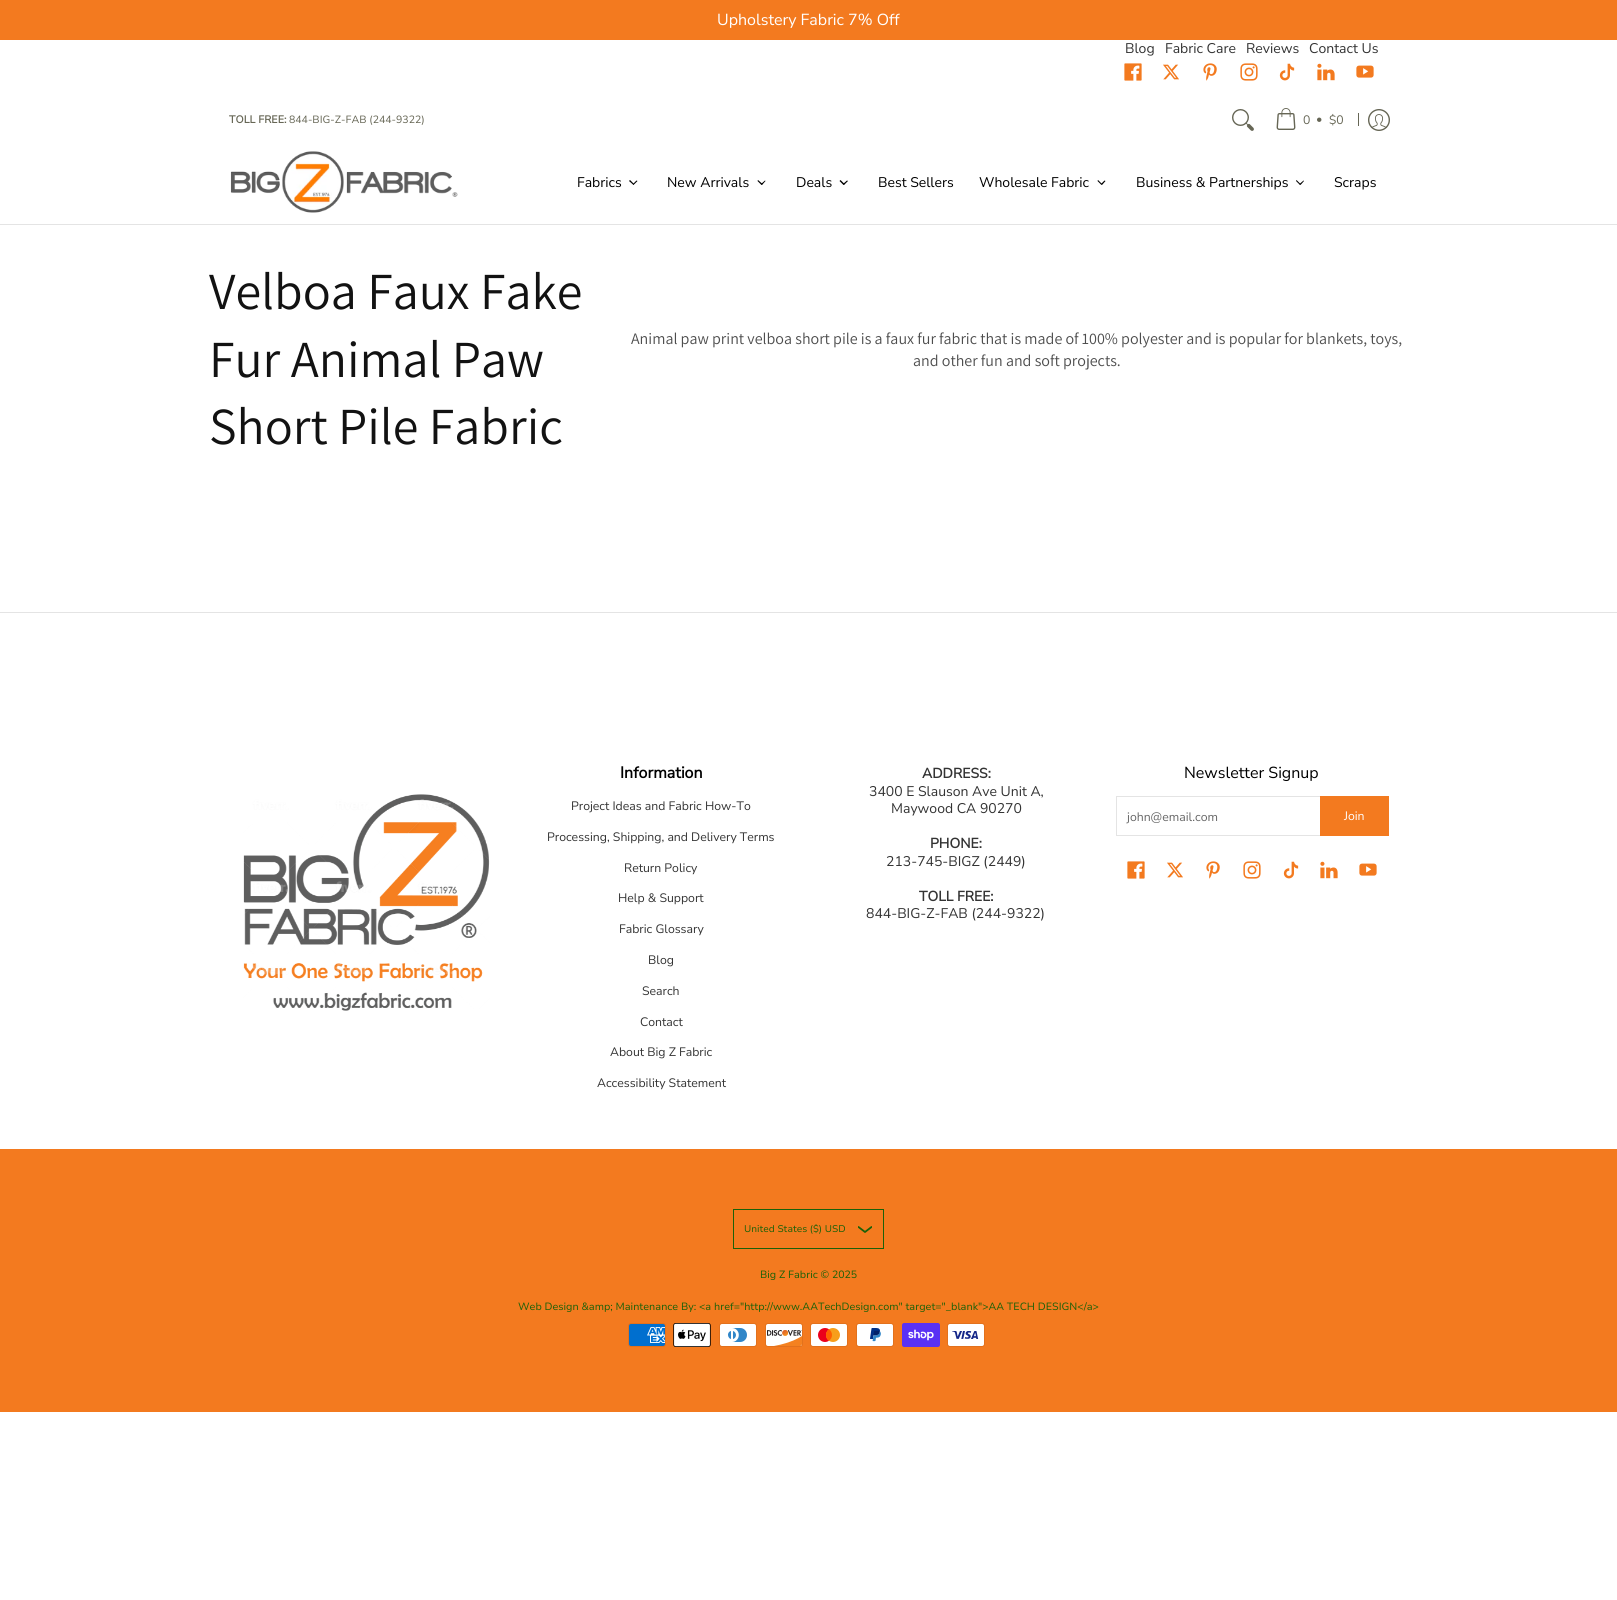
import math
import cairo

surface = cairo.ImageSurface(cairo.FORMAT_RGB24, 1617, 1600)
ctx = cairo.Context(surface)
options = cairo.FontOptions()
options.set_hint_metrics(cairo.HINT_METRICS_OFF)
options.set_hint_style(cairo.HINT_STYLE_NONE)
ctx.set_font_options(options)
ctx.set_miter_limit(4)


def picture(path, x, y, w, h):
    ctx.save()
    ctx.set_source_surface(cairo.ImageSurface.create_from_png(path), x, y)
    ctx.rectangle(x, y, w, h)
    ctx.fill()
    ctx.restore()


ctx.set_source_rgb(1, 1, 1)
ctx.paint()
ctx.set_source_rgb(0.953, 0.478, 0.122)
ctx.rectangle(0, 0, 1617, 40)
ctx.fill()
ctx.select_font_face("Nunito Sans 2")
ctx.set_font_size(16)
ctx.set_source_rgb(1, 1, 1)
ctx.move_to(717, 25)
ctx.show_text("Upholstery Fabric 7% Off")
ctx.set_font_size(14)
ctx.set_source_rgb(0.2, 0.2, 0.2)
ctx.move_to(1125, 53)
ctx.show_text("Blog")
ctx.move_to(1165, 53)
ctx.show_text("Fabric Care")
ctx.move_to(1246, 53)
ctx.show_text("Reviews")
ctx.move_to(1309, 53)
ctx.show_text("Contact Us")
picture("img1.png", 1124, 63, 18, 18)
picture("img2.png", 1163, 64, 16, 16)
picture("img3.png", 1203, 63, 14, 18)
picture("img4.png", 1240, 63, 18, 18)
picture("img5.png", 1279, 63, 16, 18)
picture("img6.png", 1317, 63, 18, 18)
picture("img7.png", 1356, 65, 18, 13)
ctx.select_font_face("Nunito Sans 2", cairo.FONT_SLANT_NORMAL, cairo.FONT_WEIGHT_BOLD)
ctx.set_font_size(10.5)
ctx.set_source_rgb(0.4, 0.4, 0.333)
ctx.move_to(229, 123)
ctx.show_text("TOLL FREE:")
ctx.select_font_face("Nunito Sans")
ctx.move_to(289, 123)
ctx.show_text("844-BIG-Z-FAB (244-9322)")
picture("img8.png", 1232, 109, 22, 22)
picture("img9.png", 1276, 108, 20, 22)
ctx.select_font_face("Nunito Sans 2")
ctx.set_font_size(12.25)
ctx.move_to(1303, 124)
ctx.show_text("0")
ctx.move_to(1316, 123)
ctx.show_text("•")
ctx.move_to(1329, 124)
ctx.show_text("$0")
ctx.rectangle(1358, 113, 1, 13)
ctx.fill()
picture("img10.png", 1368, 109, 22, 22)
ctx.set_source_rgb(0.894, 0.894, 0.894)
ctx.rectangle(0, 224, 1617, 1)
ctx.fill()
picture("img11.png", 230, 151, 228, 62)
ctx.set_font_size(14)
ctx.set_source_rgb(0, 0, 0)
ctx.move_to(577, 187)
ctx.show_text("Fabrics")
ctx.new_path()
ctx.move_to(636.5, 180.5)
ctx.line_to(637.5, 181)
ctx.line_to(633.5, 185)
ctx.line_to(633, 184)
ctx.close_path()
ctx.fill()
ctx.new_path()
ctx.move_to(630, 180)
ctx.line_to(634, 184)
ctx.line_to(633.5, 185)
ctx.line_to(629, 181)
ctx.close_path()
ctx.fill()
ctx.move_to(667, 187)
ctx.show_text("New Arrivals")
ctx.new_path()
ctx.move_to(765, 180.5)
ctx.line_to(765.5, 181)
ctx.line_to(762, 185)
ctx.line_to(761, 184)
ctx.close_path()
ctx.fill()
ctx.new_path()
ctx.move_to(758, 180)
ctx.line_to(762.5, 184)
ctx.line_to(761.5, 185)
ctx.line_to(757.5, 181)
ctx.close_path()
ctx.fill()
ctx.move_to(796, 187)
ctx.show_text("Deals")
ctx.new_path()
ctx.move_to(847, 180.5)
ctx.line_to(848, 181)
ctx.line_to(844, 185)
ctx.line_to(843, 184)
ctx.close_path()
ctx.fill()
ctx.new_path()
ctx.move_to(840.5, 180)
ctx.line_to(844.5, 184)
ctx.line_to(843.5, 185)
ctx.line_to(839.5, 181)
ctx.close_path()
ctx.fill()
ctx.move_to(878, 187)
ctx.show_text("Best Sellers")
ctx.move_to(979, 187)
ctx.show_text("Wholesale Fabric")
ctx.new_path()
ctx.move_to(1104.5, 180.5)
ctx.line_to(1105.5, 181)
ctx.line_to(1102, 185)
ctx.line_to(1101, 184)
ctx.close_path()
ctx.fill()
ctx.new_path()
ctx.move_to(1098, 180)
ctx.line_to(1102, 184)
ctx.line_to(1101.5, 185)
ctx.line_to(1097.5, 181)
ctx.close_path()
ctx.fill()
ctx.move_to(1136, 187)
ctx.show_text("Business & Partnerships")
ctx.new_path()
ctx.move_to(1303.5, 180.5)
ctx.line_to(1304, 181)
ctx.line_to(1300.5, 185)
ctx.line_to(1299.5, 184)
ctx.close_path()
ctx.fill()
ctx.new_path()
ctx.move_to(1296.5, 180)
ctx.line_to(1300.5, 184)
ctx.line_to(1300, 185)
ctx.line_to(1296, 181)
ctx.close_path()
ctx.fill()
ctx.move_to(1334, 187)
ctx.show_text("Scraps")
ctx.select_font_face("Assistant")
ctx.set_font_size(52)
ctx.set_source_rgb(0.071, 0.071, 0.071)
ctx.move_to(209, 309)
ctx.show_text("Velboa Faux Fake")
ctx.move_to(209, 377)
ctx.show_text("Fur Animal Paw")
ctx.move_to(209, 444)
ctx.show_text("Short Pile Fabric")
ctx.set_font_size(16)
ctx.set_source_rgb(0.302, 0.302, 0.302)
ctx.move_to(631, 344)
ctx.show_text("Animal paw print velboa short pile is a faux fur fabric that is made of 100% polyester and is popular for blankets, toys,")
ctx.move_to(913, 366)
ctx.show_text("and other fun and soft projects.")
ctx.set_source_rgb(0.894, 0.894, 0.894)
ctx.rectangle(0, 612, 1617, 1)
ctx.fill()
picture("img12.png", 243, 794, 247, 217)
ctx.select_font_face("Nunito Sans", cairo.FONT_SLANT_NORMAL, cairo.FONT_WEIGHT_BOLD)
ctx.set_source_rgb(0, 0, 0)
ctx.move_to(620, 778)
ctx.show_text("Information")
ctx.select_font_face("Nunito Sans 2")
ctx.set_font_size(12.25)
ctx.set_source_rgb(0.2, 0.2, 0.2)
ctx.move_to(571, 810)
ctx.show_text("Project Ideas and Fabric How-To")
ctx.move_to(547, 841)
ctx.show_text("Processing, Shipping, and Delivery Terms")
ctx.move_to(624, 872)
ctx.show_text("Return Policy")
ctx.move_to(618, 902)
ctx.show_text("Help & Support")
ctx.move_to(619, 933)
ctx.show_text("Fabric Glossary")
ctx.move_to(648, 964)
ctx.show_text("Blog")
ctx.move_to(642, 995)
ctx.show_text("Search")
ctx.move_to(640, 1026)
ctx.show_text("Contact")
ctx.move_to(610, 1056)
ctx.show_text("About Big Z Fabric")
ctx.move_to(597, 1087)
ctx.show_text("Accessibility Statement")
ctx.select_font_face("Nunito Sans", cairo.FONT_SLANT_NORMAL, cairo.FONT_WEIGHT_BOLD)
ctx.set_font_size(14)
ctx.move_to(922, 778)
ctx.show_text("ADDRESS:")
ctx.select_font_face("Nunito Sans 2")
ctx.move_to(869, 796)
ctx.show_text("3400 E Slauson Ave Unit A,")
ctx.move_to(891, 813)
ctx.show_text("Maywood CA 90270")
ctx.select_font_face("Nunito Sans", cairo.FONT_SLANT_NORMAL, cairo.FONT_WEIGHT_BOLD)
ctx.move_to(930, 848)
ctx.show_text("PHONE:")
ctx.select_font_face("Nunito Sans 2")
ctx.move_to(886, 866)
ctx.show_text("213-745-BIGZ (2449)")
ctx.select_font_face("Nunito Sans", cairo.FONT_SLANT_NORMAL, cairo.FONT_WEIGHT_BOLD)
ctx.move_to(919, 901)
ctx.show_text("TOLL FREE:")
ctx.select_font_face("Nunito Sans 2")
ctx.move_to(866, 918)
ctx.show_text("844-BIG-Z-FAB (244-9322)")
ctx.set_font_size(16)
ctx.set_source_rgb(0, 0, 0)
ctx.move_to(1184, 778)
ctx.show_text("Newsletter Signup")
ctx.rectangle(1116.5, 796.5, 205, 39)
ctx.set_source_rgb(0.894, 0.894, 0.894)
ctx.set_line_width(1)
ctx.stroke()
ctx.set_font_size(12.25)
ctx.set_source_rgb(0.4, 0.4, 0.4)
ctx.move_to(1127, 821)
ctx.show_text("john@email.com")
ctx.set_source_rgb(0.953, 0.478, 0.122)
ctx.rectangle(1320, 796, 69, 40)
ctx.fill()
ctx.set_source_rgb(1, 1, 1)
ctx.move_to(1344, 820)
ctx.show_text("Join")
picture("img1.png", 1127, 861, 18, 18)
picture("img2.png", 1167, 862, 16, 16)
picture("img3.png", 1206, 861, 14, 18)
picture("img4.png", 1243, 861, 18, 18)
picture("img5.png", 1283, 861, 16, 18)
picture("img6.png", 1320, 861, 18, 18)
picture("img7.png", 1359, 863, 18, 13)
ctx.set_source_rgb(0.953, 0.478, 0.122)
ctx.rectangle(0, 1149, 1617, 263)
ctx.fill()
ctx.rectangle(733.5, 1209.5, 150, 39)
ctx.set_source_rgb(0.106, 0.38, 0.035)
ctx.stroke()
ctx.select_font_face("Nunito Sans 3")
ctx.set_font_size(9.75)
ctx.move_to(744, 1232)
ctx.show_text("United States ($) USD")
ctx.save()
ctx.rectangle(858, 1222, 14, 14)
ctx.clip()
ctx.new_path()
ctx.move_to(858.5, 1227)
ctx.line_to(865, 1232)
ctx.line_to(871.5, 1227)
ctx.set_line_width(1.8)
ctx.set_line_cap(cairo.LINE_CAP_ROUND)
ctx.set_line_join(cairo.LINE_JOIN_ROUND)
ctx.stroke()
ctx.restore()
ctx.select_font_face("Nunito Sans")
ctx.set_font_size(10.5)
ctx.move_to(760, 1278)
ctx.show_text("Big Z Fabric © 2025")
ctx.move_to(518, 1310)
ctx.show_text("Web Design &amp; Maintenance By: <a href=\"http://www.AATechDesign.com\" target=\"_blank\">AA TECH DESIGN</a>")
picture("img13.png", 628, 1323, 38, 24)
picture("img14.png", 673, 1323, 38, 24)
picture("img15.png", 719, 1323, 38, 24)
picture("img16.png", 765, 1323, 38, 24)
picture("img17.png", 810, 1323, 38, 24)
picture("img18.png", 856, 1323, 38, 24)
picture("img19.png", 902, 1323, 38, 24)
picture("img20.png", 947, 1323, 38, 24)
surface.write_to_png("page.png")
